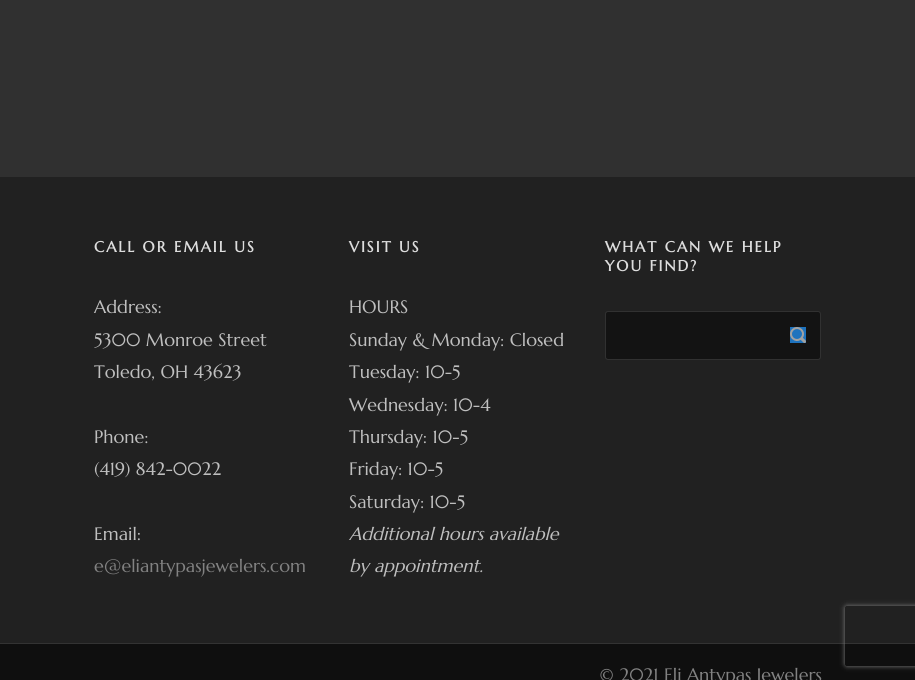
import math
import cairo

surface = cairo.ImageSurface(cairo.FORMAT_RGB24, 915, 680)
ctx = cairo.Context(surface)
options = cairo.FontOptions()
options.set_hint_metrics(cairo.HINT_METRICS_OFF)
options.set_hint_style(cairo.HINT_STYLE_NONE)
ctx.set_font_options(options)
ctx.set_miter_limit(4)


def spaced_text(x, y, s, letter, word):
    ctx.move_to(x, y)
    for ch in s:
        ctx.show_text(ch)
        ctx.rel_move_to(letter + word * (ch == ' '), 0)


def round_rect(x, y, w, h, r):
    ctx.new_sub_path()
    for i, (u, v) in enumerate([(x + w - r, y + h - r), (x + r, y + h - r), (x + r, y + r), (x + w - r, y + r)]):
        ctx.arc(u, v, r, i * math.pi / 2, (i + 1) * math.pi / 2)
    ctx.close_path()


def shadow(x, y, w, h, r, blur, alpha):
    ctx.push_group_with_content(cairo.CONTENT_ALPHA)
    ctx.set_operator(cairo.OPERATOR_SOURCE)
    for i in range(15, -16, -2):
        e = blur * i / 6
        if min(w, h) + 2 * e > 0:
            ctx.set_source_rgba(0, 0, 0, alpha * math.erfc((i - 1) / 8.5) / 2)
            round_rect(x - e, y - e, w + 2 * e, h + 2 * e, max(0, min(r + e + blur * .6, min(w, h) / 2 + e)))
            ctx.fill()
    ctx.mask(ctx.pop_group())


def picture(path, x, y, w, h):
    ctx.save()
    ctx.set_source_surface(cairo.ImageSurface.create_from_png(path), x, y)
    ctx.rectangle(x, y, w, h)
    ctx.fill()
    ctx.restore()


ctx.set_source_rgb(0.188, 0.188, 0.188)
ctx.paint()
ctx.set_source_rgb(0.129, 0.129, 0.129)
ctx.rectangle(0, 177, 915, 466)
ctx.fill()
ctx.select_font_face("Marcellus", cairo.FONT_SLANT_NORMAL, cairo.FONT_WEIGHT_BOLD)
ctx.set_font_size(15)
ctx.set_source_rgb(0.867, 0.867, 0.867)
spaced_text(94, 252, "CALL OR EMAIL US", 2, 0)
ctx.select_font_face("Marcellus")
ctx.set_font_size(18)
ctx.set_source_rgb(0.749, 0.749, 0.749)
ctx.move_to(94, 313)
ctx.show_text("Address:")
ctx.move_to(94, 346)
ctx.show_text("5300 Monroe Street")
ctx.move_to(94, 378)
ctx.show_text("Toledo, OH 43623")
ctx.move_to(94, 443)
ctx.show_text("Phone:")
ctx.move_to(94, 475)
ctx.show_text("(419) 842-0022")
ctx.move_to(94, 540)
ctx.show_text("Email:")
ctx.set_source_rgb(0.51, 0.51, 0.51)
ctx.move_to(94, 572)
ctx.show_text("e@eliantypasjewelers.com")
ctx.select_font_face("Marcellus", cairo.FONT_SLANT_NORMAL, cairo.FONT_WEIGHT_BOLD)
ctx.set_font_size(15)
ctx.set_source_rgb(0.867, 0.867, 0.867)
spaced_text(349, 252, "VISIT US", 2, 0)
ctx.select_font_face("Marcellus")
ctx.set_font_size(18)
ctx.set_source_rgb(0.749, 0.749, 0.749)
ctx.move_to(349, 313)
ctx.show_text("HOURS")
ctx.move_to(349, 346)
ctx.show_text("Sunday & Monday: Closed")
ctx.move_to(349, 378)
ctx.show_text("Tuesday: 10-5")
ctx.move_to(349, 411)
ctx.show_text("Wednesday: 10-4")
ctx.move_to(349, 443)
ctx.show_text("Thursday: 10-5")
ctx.move_to(349, 475)
ctx.show_text("Friday: 10-5")
ctx.move_to(349, 508)
ctx.show_text("Saturday: 10-5")
ctx.select_font_face("Marcellus", cairo.FONT_SLANT_ITALIC)
ctx.move_to(349, 540)
ctx.show_text("Additional hours available")
ctx.move_to(349, 572)
ctx.show_text("by appointment.")
ctx.select_font_face("Marcellus", cairo.FONT_SLANT_NORMAL, cairo.FONT_WEIGHT_BOLD)
ctx.set_font_size(15)
ctx.set_source_rgb(0.867, 0.867, 0.867)
spaced_text(605, 252, "WHAT CAN WE HELP", 2, 0)
spaced_text(605, 271, "YOU FIND?", 2, 0)
ctx.set_source_rgb(0.078, 0.078, 0.078)
round_rect(605.5, 311.5, 215, 48, 2.5)
ctx.fill_preserve()
ctx.set_source_rgb(0.192, 0.192, 0.192)
ctx.set_line_width(1)
ctx.stroke()
ctx.set_source_rgb(0.118, 0.451, 0.745)
ctx.rectangle(790, 327, 16, 16)
ctx.fill()
picture("img1.png", 790, 327, 16, 16)
ctx.set_source_rgb(0.059, 0.059, 0.059)
ctx.rectangle(0, 644, 915, 36)
ctx.fill()
ctx.set_source_rgb(0.2, 0.2, 0.2)
ctx.rectangle(0, 643, 915, 1)
ctx.fill()
ctx.select_font_face("Marcellus")
ctx.set_font_size(18)
ctx.set_source_rgb(0.51, 0.51, 0.51)
ctx.move_to(599, 681)
ctx.show_text("© 2021 Eli Antypas Jewelers")
ctx.save()
ctx.set_fill_rule(cairo.FILL_RULE_EVEN_ODD)
ctx.new_path()
ctx.move_to(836, 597)
ctx.line_to(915, 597)
ctx.line_to(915, 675)
ctx.line_to(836, 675)
ctx.close_path()
ctx.move_to(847, 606)
ctx.line_to(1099, 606)
ctx.curve_to(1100, 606, 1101, 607, 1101, 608)
ctx.line_to(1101, 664)
ctx.curve_to(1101, 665, 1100, 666, 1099, 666)
ctx.line_to(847, 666)
ctx.curve_to(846, 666, 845, 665, 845, 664)
ctx.line_to(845, 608)
ctx.curve_to(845, 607, 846, 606, 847, 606)
ctx.close_path()
ctx.clip()
ctx.set_source_rgb(0.502, 0.502, 0.502)
shadow(845, 606, 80, 60, 2, 2.5, 1)
ctx.restore()
surface.write_to_png("page.png")
